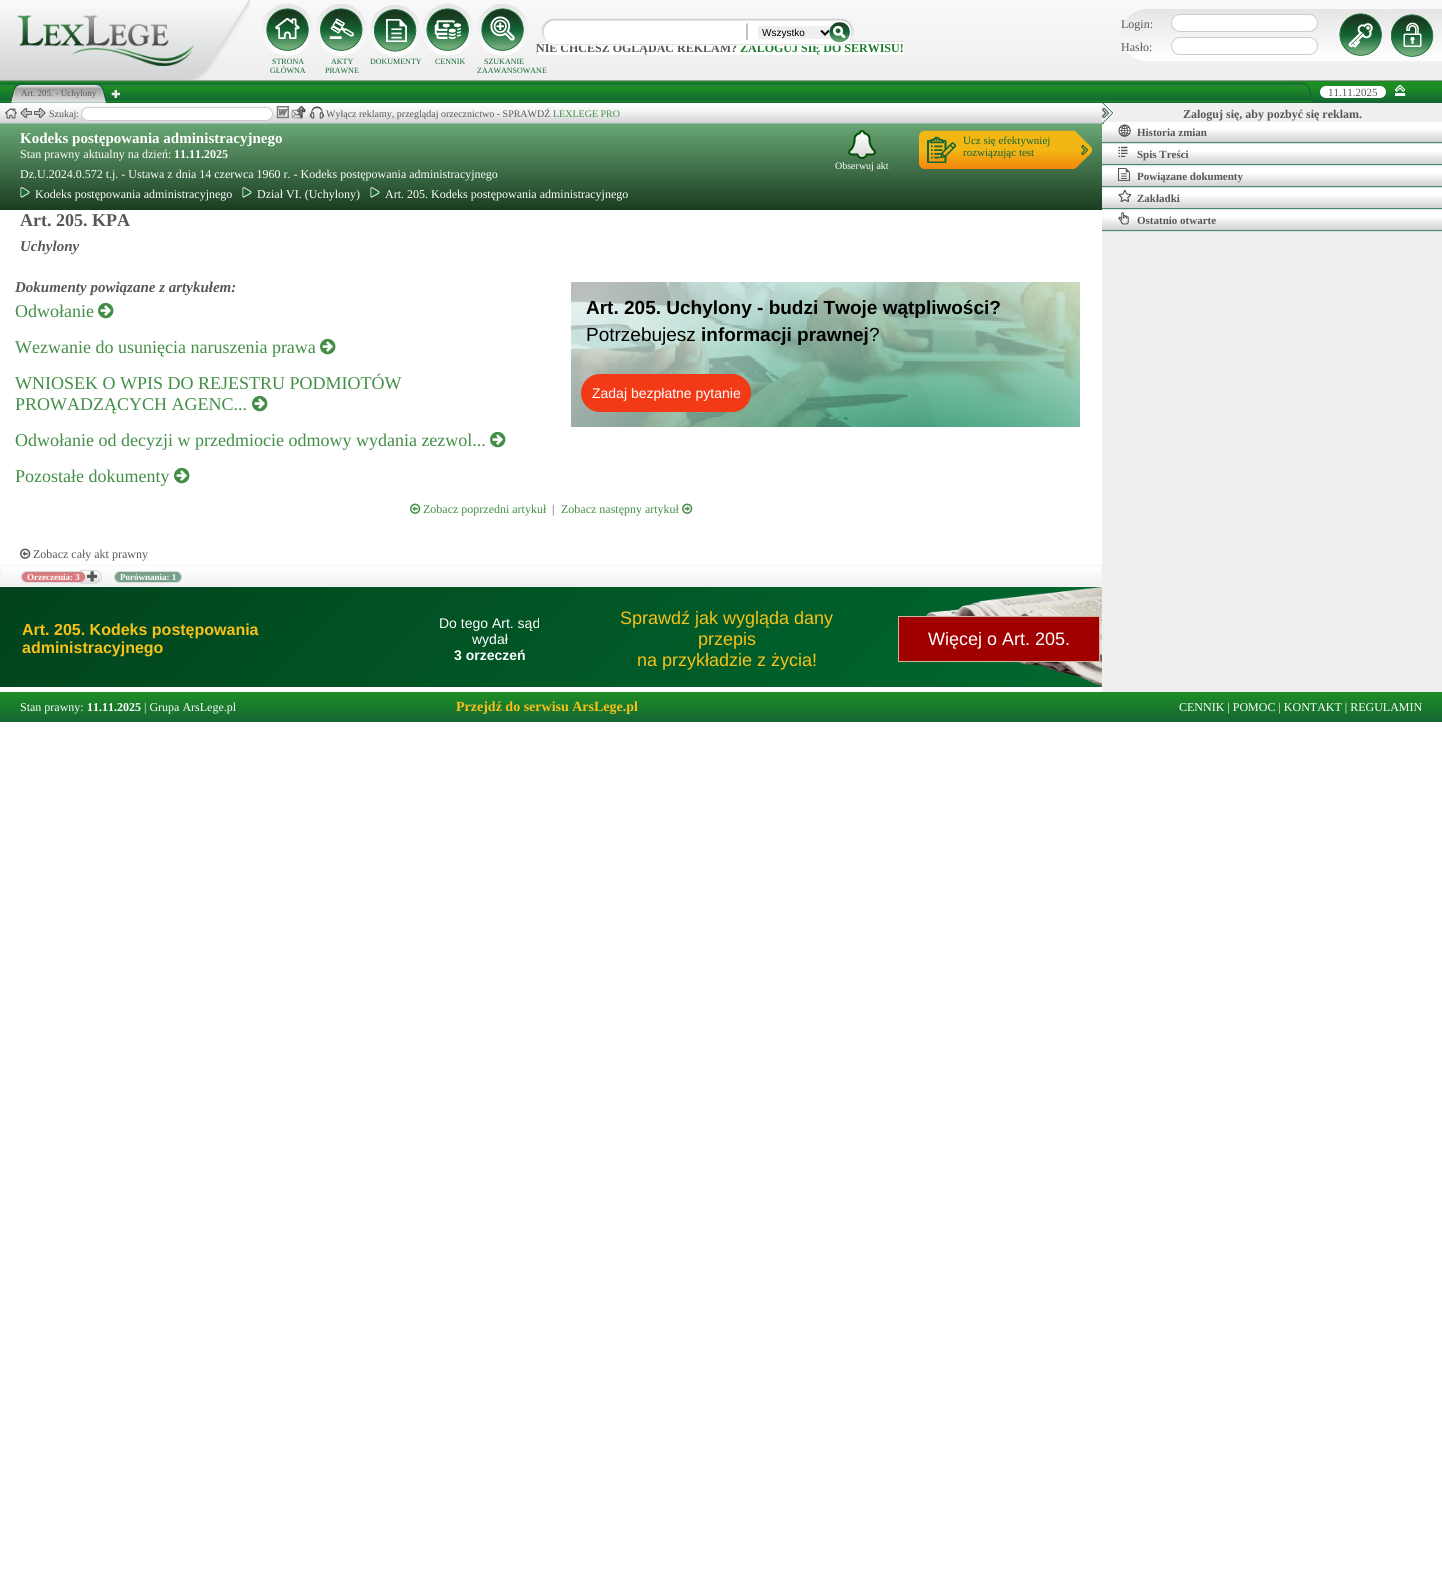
import math
import cairo

surface = cairo.ImageSurface(cairo.FORMAT_RGB24, 1442, 1592)
ctx = cairo.Context(surface)
options = cairo.FontOptions()
options.set_hint_metrics(cairo.HINT_METRICS_OFF)
options.set_hint_style(cairo.HINT_STYLE_NONE)
ctx.set_font_options(options)
ctx.set_miter_limit(4)


def round_rect(x, y, w, h, r):
    ctx.new_sub_path()
    for i, (u, v) in enumerate([(x + w - r, y + h - r), (x + r, y + h - r), (x + r, y + r), (x + w - r, y + r)]):
        ctx.arc(u, v, r, i * math.pi / 2, (i + 1) * math.pi / 2)
    ctx.close_path()


def picture(path, x, y, w, h):
    ctx.save()
    ctx.set_source_surface(cairo.ImageSurface.create_from_png(path), x, y)
    ctx.rectangle(x, y, w, h)
    ctx.fill()
    ctx.restore()


ctx.set_source_rgb(1, 1, 1)
ctx.paint()
gradient = cairo.LinearGradient(721, 0, 721, 80)
gradient.add_color_stop_rgba(0, 0.976, 0.976, 0.976, 1)
gradient.add_color_stop_rgba(1, 0.933, 0.933, 0.933, 1)
ctx.set_source(gradient)
ctx.rectangle(189, 0, 1253, 80)
ctx.fill()
picture("img1.png", 0, 0, 250, 80)
picture("img4.png", 536, 41, 368, 14)
ctx.select_font_face("Liberation Serif", cairo.FONT_SLANT_NORMAL, cairo.FONT_WEIGHT_BOLD)
ctx.set_font_size(12)
ctx.set_source_rgb(0.341, 0.341, 0.341)
ctx.move_to(536, 52)
ctx.show_text("NIE CHCESZ OGLĄDAĆ REKLAM?")
ctx.set_source_rgb(0.098, 0.494, 0.165)
ctx.move_to(740, 52)
ctx.show_text("ZALOGUJ SIĘ DO SERWISU!")
picture("img2.png", 541, 18, 313, 28)
ctx.set_source_rgb(0.937, 0.937, 0.937)
ctx.rectangle(758, 26, 74, 13)
ctx.fill()
ctx.new_path()
ctx.move_to(821, 30.5)
ctx.line_to(825, 34.5)
ctx.line_to(829, 30.5)
ctx.set_source_rgb(0, 0, 0)
ctx.stroke()
ctx.select_font_face("Liberation Sans")
ctx.set_font_size(10)
ctx.move_to(762, 36)
ctx.show_text("Wszystko")
picture("img3.png", 829, 22, 21, 21)
ctx.set_source_rgba(1, 1, 1, 0.25)
ctx.new_path()
ctx.move_to(833, 23)
ctx.line_to(848, 23)
ctx.curve_to(850, 23, 852, 25, 852, 27)
ctx.curve_to(852, 22.5, 849.5, 22, 845.5, 22)
ctx.line_to(835.5, 22)
ctx.curve_to(831.5, 22, 829, 22.5, 829, 27)
ctx.curve_to(829, 25, 831, 23, 833, 23)
ctx.close_path()
ctx.fill()
gradient = cairo.LinearGradient(1282, 9, 1282, 61)
gradient.add_color_stop_rgba(0, 0.898, 0.898, 0.898, 1)
gradient.add_color_stop_rgba(1, 1, 1, 1, 1)
ctx.set_source(gradient)
ctx.new_path()
ctx.move_to(1147, 9)
ctx.line_to(1442, 9)
ctx.line_to(1442, 61)
ctx.line_to(1147, 61)
ctx.curve_to(1132.5, 61, 1121, 49.5, 1121, 35)
ctx.curve_to(1121, 20.5, 1132.5, 9, 1147, 9)
ctx.close_path()
ctx.fill()
ctx.select_font_face("Liberation Serif")
ctx.set_font_size(12)
ctx.set_source_rgb(0.341, 0.341, 0.341)
ctx.move_to(1121, 28)
ctx.show_text("Login:")
ctx.set_source_rgb(1, 1, 1)
round_rect(1171.5, 14.5, 146, 17, 8.5)
ctx.fill_preserve()
ctx.set_source_rgb(0.796, 0.8, 0.8)
ctx.set_line_width(1)
ctx.stroke()
ctx.set_source_rgb(0.341, 0.341, 0.341)
ctx.move_to(1121, 51)
ctx.show_text("Hasło:")
ctx.set_source_rgb(1, 1, 1)
round_rect(1171.5, 37.5, 146, 17, 8.5)
ctx.fill_preserve()
ctx.set_source_rgb(0.796, 0.8, 0.8)
ctx.stroke()
picture("img5.png", 1339, 13, 46, 48)
ctx.set_source_rgba(1, 1, 1, 0.25)
ctx.new_path()
ctx.move_to(1338, 9)
ctx.line_to(1384, 9)
ctx.curve_to(1386, 9, 1388, 11, 1388, 13)
ctx.curve_to(1388, 6, 1381, 8, 1376, 8)
ctx.line_to(1346, 8)
ctx.curve_to(1341, 8, 1334, 6, 1334, 13)
ctx.curve_to(1334, 11, 1336, 9, 1338, 9)
ctx.close_path()
ctx.fill()
picture("img6.png", 1391, 10, 46, 52)
picture("img7.png", 262, 4, 51, 52)
ctx.set_font_size(8)
ctx.set_source_rgb(0.078, 0.4, 0.208)
ctx.move_to(272, 64)
ctx.show_text("STRONA")
ctx.move_to(270, 73)
ctx.show_text("GŁÓWNA")
picture("img8.png", 316, 4, 51, 52)
ctx.move_to(331, 64)
ctx.show_text("AKTY")
ctx.move_to(325, 73)
ctx.show_text("PRAWNE")
picture("img9.png", 370, 5, 50, 51)
ctx.move_to(370, 64)
ctx.show_text("DOKUMENTY")
picture("img10.png", 423, 4, 50, 52)
ctx.move_to(435, 64)
ctx.show_text("CENNIK")
picture("img11.png", 477, 4, 51, 52)
ctx.move_to(484, 64)
ctx.show_text("SZUKANIE")
ctx.move_to(477, 73)
ctx.show_text("ZAAWANSOWANE")
ctx.set_source_rgb(0.937, 0.937, 0.937)
ctx.rectangle(1102, 103, 340, 589)
ctx.fill()
picture("img12.png", 0, 80, 1442, 23)
picture("img13.png", 96, 84, 11, 19)
picture("img14.png", 10, 84, 86, 19)
ctx.set_font_size(9)
ctx.set_source_rgb(0.341, 0.341, 0.341)
ctx.move_to(21, 96)
ctx.show_text("Art. 205. - Uchylony")
picture("img15.png", 111, 90, 9, 8)
picture("img16.png", 1292, 82, 150, 20)
ctx.set_source_rgb(1, 1, 1)
round_rect(1320, 86, 66, 12, 6)
ctx.fill()
ctx.set_font_size(11)
ctx.set_source_rgb(0.341, 0.341, 0.341)
ctx.move_to(1328, 96)
ctx.show_text("11.11.2025")
picture("img17.png", 1395, 85, 11, 11)
picture("img18.png", 0, 105, 1102, 19)
picture("img19.png", 5, 108, 12, 11)
picture("img20.png", 20, 108, 12, 10)
picture("img21.png", 34, 108, 12, 10)
ctx.set_font_size(10)
ctx.move_to(49, 117)
ctx.show_text("Szukaj:")
ctx.set_source_rgb(1, 1, 1)
round_rect(81.5, 107.5, 191, 13, 6.5)
ctx.fill_preserve()
ctx.set_source_rgb(0.796, 0.8, 0.8)
ctx.stroke()
picture("img22.png", 276, 106, 13, 13)
picture("img23.png", 291, 106, 15, 13)
picture("img24.png", 309, 106, 15, 13)
ctx.set_source_rgb(0.341, 0.341, 0.341)
ctx.move_to(326, 117)
ctx.show_text("Wyłącz reklamy, przeglądaj orzecznictwo - SPRAWDŹ")
ctx.set_source_rgb(0.259, 0.557, 0.275)
ctx.move_to(553, 117)
ctx.show_text("LEXLEGE PRO")
picture("img36.png", 1102, 122, 340, 21)
picture("img25.png", 1102, 103, 13, 21)
gradient = cairo.LinearGradient(551, 124, 551, 210)
gradient.add_color_stop_rgba(0, 0.412, 0.655, 0.455, 1)
gradient.add_color_stop_rgba(1, 0.098, 0.235, 0.125, 1)
ctx.set_source(gradient)
ctx.rectangle(0, 124, 1102, 86)
ctx.fill()
ctx.select_font_face("Liberation Serif", cairo.FONT_SLANT_NORMAL, cairo.FONT_WEIGHT_BOLD)
ctx.set_font_size(15)
ctx.set_source_rgb(1, 1, 1)
ctx.move_to(20, 143)
ctx.show_text("Kodeks postępowania administracyjnego")
ctx.select_font_face("Liberation Serif")
ctx.set_font_size(12)
ctx.move_to(20, 158)
ctx.show_text("Stan prawny aktualny na dzień:")
ctx.select_font_face("Liberation Serif", cairo.FONT_SLANT_NORMAL, cairo.FONT_WEIGHT_BOLD)
ctx.move_to(174, 158)
ctx.show_text("11.11.2025")
ctx.select_font_face("Liberation Serif")
ctx.move_to(20, 178)
ctx.show_text("Dz.U.2024.0.572 t.j. - Ustawa z dnia 14 czerwca 1960 r. - Kodeks postępowania administracyjnego")
picture("img26.png", 20, 187, 10, 11)
ctx.move_to(35, 198)
ctx.show_text("Kodeks postępowania administracyjnego")
picture("img26.png", 242, 187, 10, 11)
ctx.move_to(257, 198)
ctx.show_text("Dział VI. (Uchylony)")
picture("img26.png", 370, 187, 10, 11)
ctx.move_to(385, 198)
ctx.show_text("Art. 205. Kodeks postępowania administracyjnego")
picture("img27.png", 919, 130, 173, 39)
ctx.set_font_size(11)
ctx.set_source_rgb(0.078, 0.4, 0.208)
ctx.move_to(963, 144)
ctx.show_text("Ucz się efektywniej")
ctx.move_to(963, 156)
ctx.show_text("rozwiązując test")
picture("img28.png", 848, 130, 28, 29)
ctx.set_font_size(10)
ctx.set_source_rgb(1, 1, 1)
ctx.move_to(835, 169)
ctx.show_text("Obserwuj akt")
ctx.select_font_face("Liberation Serif", cairo.FONT_SLANT_NORMAL, cairo.FONT_WEIGHT_BOLD)
ctx.set_font_size(18)
ctx.set_source_rgb(0.341, 0.341, 0.341)
ctx.move_to(20, 226)
ctx.show_text("Art. 205. KPA")
ctx.select_font_face("Liberation Serif", cairo.FONT_SLANT_ITALIC, cairo.FONT_WEIGHT_BOLD)
ctx.set_font_size(15)
ctx.move_to(20, 251)
ctx.show_text("Uchylony")
ctx.move_to(15, 292)
ctx.show_text("Dokumenty powiązane z artykułem:")
ctx.select_font_face("Liberation Serif")
ctx.set_font_size(18)
ctx.set_source_rgb(0.259, 0.557, 0.275)
ctx.move_to(15, 317)
ctx.show_text("Odwołanie")
picture("img29.png", 98, 302, 16, 17)
ctx.move_to(15, 353)
ctx.show_text("Wezwanie do usunięcia naruszenia prawa")
picture("img29.png", 320, 338, 16, 17)
ctx.move_to(15, 389)
ctx.show_text("WNIOSEK O WPIS DO REJESTRU PODMIOTÓW")
ctx.move_to(15, 410)
ctx.show_text("PROWADZĄCYCH AGENC...")
picture("img29.png", 252, 395, 16, 17)
ctx.move_to(15, 446)
ctx.show_text("Odwołanie od decyzji w przedmiocie odmowy wydania zezwol...")
picture("img29.png", 490, 431, 16, 17)
ctx.move_to(15, 482)
ctx.show_text("Pozostałe dokumenty")
picture("img29.png", 174, 467, 16, 17)
picture("img30.png", 571, 282, 509, 145)
ctx.select_font_face("Liberation Sans", cairo.FONT_SLANT_NORMAL, cairo.FONT_WEIGHT_BOLD)
ctx.set_font_size(19)
ctx.set_source_rgb(0, 0, 0)
ctx.move_to(586, 314)
ctx.show_text("Art. 205. Uchylony - budzi Twoje wątpliwości?")
ctx.select_font_face("Liberation Sans")
ctx.move_to(586, 341)
ctx.show_text("Potrzebujesz")
ctx.select_font_face("Liberation Sans", cairo.FONT_SLANT_NORMAL, cairo.FONT_WEIGHT_BOLD)
ctx.move_to(701, 341)
ctx.show_text("informacji prawnej")
ctx.select_font_face("Liberation Sans")
ctx.move_to(869, 341)
ctx.show_text("?")
ctx.set_source_rgb(0.949, 0.227, 0.086)
round_rect(581, 374, 170, 38, 19)
ctx.fill()
ctx.set_font_size(14)
ctx.set_source_rgb(1, 1, 1)
ctx.move_to(592, 398)
ctx.show_text("Zadaj bezpłatne pytanie")
picture("img31.png", 410, 503, 11, 11)
ctx.select_font_face("Liberation Serif")
ctx.set_font_size(12)
ctx.set_source_rgb(0.259, 0.557, 0.275)
ctx.move_to(423, 513)
ctx.show_text("Zobacz poprzedni artykuł")
ctx.set_source_rgb(0.341, 0.341, 0.341)
ctx.move_to(552, 513)
ctx.show_text("|")
ctx.set_source_rgb(0.259, 0.557, 0.275)
ctx.move_to(561, 513)
ctx.show_text("Zobacz następny artykuł")
picture("img32.png", 682, 503, 11, 11)
picture("img33.png", 20, 548, 11, 11)
ctx.set_source_rgb(0.341, 0.341, 0.341)
ctx.move_to(33, 558)
ctx.show_text("Zobacz cały akt prawny")
gradient = cairo.LinearGradient(551, 566, 551, 586)
gradient.add_color_stop_rgba(0, 1, 1, 1, 1)
gradient.add_color_stop_rgba(1, 0.937, 0.941, 0.941, 1)
ctx.set_source(gradient)
ctx.rectangle(1, 569, 1100, 17)
ctx.fill()
ctx.rectangle(0.5, 565.5, 1101, 21)
ctx.set_source_rgb(0.961, 0.961, 0.961)
ctx.stroke()
ctx.save()
ctx.new_path()
ctx.move_to(80, 570)
ctx.line_to(95, 570)
ctx.curve_to(99, 570, 102, 573, 102, 577)
ctx.curve_to(102, 581, 99, 584, 95, 584)
ctx.line_to(80, 584)
ctx.close_path()
ctx.clip()
gradient = cairo.LinearGradient(91, 571, 91, 583)
gradient.add_color_stop_rgba(0, 1, 1, 1, 1)
gradient.add_color_stop_rgba(1, 0.851, 0.859, 0.863, 1)
ctx.set_source(gradient)
ctx.rectangle(81, 571, 21, 12)
ctx.fill()
ctx.restore()
ctx.new_path()
ctx.move_to(80.5, 570.5)
ctx.line_to(95, 570.5)
ctx.curve_to(98.5, 570.5, 101.5, 573.5, 101.5, 577)
ctx.curve_to(101.5, 580.5, 98.5, 583.5, 95, 583.5)
ctx.line_to(80.5, 583.5)
ctx.close_path()
ctx.set_source_rgb(0.851, 0.859, 0.863)
ctx.stroke()
ctx.set_source_rgb(0.847, 0.478, 0.494)
round_rect(21.5, 571.5, 64, 11, 5.5)
ctx.fill_preserve()
ctx.set_source_rgb(0.851, 0.859, 0.863)
ctx.stroke()
ctx.select_font_face("Liberation Serif", cairo.FONT_SLANT_NORMAL, cairo.FONT_WEIGHT_BOLD)
ctx.set_font_size(9)
ctx.set_source_rgb(1, 1, 1)
ctx.move_to(27, 580)
ctx.show_text("Orzeczenia: 3")
picture("img34.png", 87, 571, 10, 11)
ctx.set_source_rgb(0.467, 0.627, 0.533)
round_rect(114.5, 571.5, 67, 11, 5.5)
ctx.fill_preserve()
ctx.set_source_rgb(0.851, 0.859, 0.863)
ctx.stroke()
ctx.set_source_rgb(1, 1, 1)
ctx.move_to(120, 580)
ctx.show_text("Porównania: 1")
gradient = cairo.LinearGradient(250, 337, 852, 938)
gradient.add_color_stop_rgba(0, 0.004, 0.263, 0.114, 1)
gradient.add_color_stop_rgba(1, 0.004, 0.412, 0.18, 1)
ctx.set_source(gradient)
ctx.rectangle(0, 587, 1102, 100)
ctx.fill()
picture("img35.png", 926, 587, 176, 100)
ctx.select_font_face("Liberation Sans", cairo.FONT_SLANT_NORMAL, cairo.FONT_WEIGHT_BOLD)
ctx.set_font_size(16)
ctx.set_source_rgb(0.969, 0.757, 0.098)
ctx.move_to(22, 635)
ctx.show_text("Art. 205. Kodeks postępowania")
ctx.move_to(22, 653)
ctx.show_text("administracyjnego")
ctx.select_font_face("Liberation Sans")
ctx.set_font_size(14)
ctx.set_source_rgb(1, 1, 1)
ctx.move_to(439, 628)
ctx.show_text("Do tego Art. sąd")
ctx.move_to(472, 644)
ctx.show_text("wydał")
ctx.select_font_face("Liberation Sans", cairo.FONT_SLANT_NORMAL, cairo.FONT_WEIGHT_BOLD)
ctx.move_to(454, 660)
ctx.show_text("3 orzeczeń")
ctx.select_font_face("Liberation Sans")
ctx.set_font_size(18)
ctx.set_source_rgb(0.969, 0.757, 0.098)
ctx.move_to(620, 624)
ctx.show_text("Sprawdź jak wygląda dany")
ctx.move_to(698, 645)
ctx.show_text("przepis")
ctx.move_to(637, 666)
ctx.show_text("na przykładzie z życia!")
ctx.set_source_rgb(0.627, 0, 0)
ctx.rectangle(898.5, 616.5, 201, 45)
ctx.fill_preserve()
ctx.set_source_rgb(0.816, 0.714, 0.627)
ctx.stroke()
ctx.set_source_rgb(1, 1, 1)
ctx.move_to(928, 645)
ctx.show_text("Więcej o Art. 205.")
ctx.select_font_face("Liberation Serif", cairo.FONT_SLANT_NORMAL, cairo.FONT_WEIGHT_BOLD)
ctx.set_font_size(12)
ctx.set_source_rgb(0.341, 0.341, 0.341)
ctx.move_to(1183, 118)
ctx.show_text("Zaloguj się, aby pozbyć się reklam.")
ctx.set_source_rgb(0.843, 0.878, 0.929)
ctx.rectangle(1102, 143, 340, 1)
ctx.fill()
picture("img37.png", 1118, 124, 13, 13)
ctx.set_font_size(11)
ctx.set_source_rgb(0.341, 0.341, 0.341)
ctx.move_to(1137, 136)
ctx.show_text("Historia zmian")
picture("img36.png", 1102, 144, 340, 21)
ctx.set_source_rgb(0.843, 0.878, 0.929)
ctx.rectangle(1102, 165, 340, 1)
ctx.fill()
picture("img38.png", 1118, 146, 10, 11)
ctx.set_source_rgb(0.341, 0.341, 0.341)
ctx.move_to(1137, 158)
ctx.show_text("Spis Treści")
picture("img36.png", 1102, 166, 340, 21)
ctx.set_source_rgb(0.843, 0.878, 0.929)
ctx.rectangle(1102, 187, 340, 1)
ctx.fill()
picture("img39.png", 1118, 168, 12, 13)
ctx.set_source_rgb(0.341, 0.341, 0.341)
ctx.move_to(1137, 180)
ctx.show_text("Powiązane dokumenty")
picture("img36.png", 1102, 188, 340, 21)
ctx.set_source_rgb(0.843, 0.878, 0.929)
ctx.rectangle(1102, 209, 340, 1)
ctx.fill()
picture("img40.png", 1118, 190, 13, 12)
ctx.set_source_rgb(0.341, 0.341, 0.341)
ctx.move_to(1137, 202)
ctx.show_text("Zakładki")
picture("img36.png", 1102, 210, 340, 21)
ctx.set_source_rgb(0.843, 0.878, 0.929)
ctx.rectangle(1102, 231, 340, 1)
ctx.fill()
picture("img41.png", 1118, 212, 11, 13)
ctx.set_source_rgb(0.341, 0.341, 0.341)
ctx.move_to(1137, 224)
ctx.show_text("Ostatnio otwarte")
gradient = cairo.LinearGradient(721, 692, 721, 722)
gradient.add_color_stop_rgba(0, 0.114, 0.557, 0.141, 1)
gradient.add_color_stop_rgba(1, 0.078, 0.4, 0.204, 1)
ctx.set_source(gradient)
ctx.rectangle(0, 692, 1442, 30)
ctx.fill()
ctx.select_font_face("Liberation Serif")
ctx.set_font_size(12)
ctx.set_source_rgb(1, 1, 1)
ctx.move_to(20, 711)
ctx.show_text("Stan prawny:")
ctx.select_font_face("Liberation Serif", cairo.FONT_SLANT_NORMAL, cairo.FONT_WEIGHT_BOLD)
ctx.move_to(87, 711)
ctx.show_text("11.11.2025")
ctx.select_font_face("Liberation Serif")
ctx.move_to(144, 711)
ctx.show_text("| Grupa ArsLege.pl")
ctx.select_font_face("Liberation Serif", cairo.FONT_SLANT_NORMAL, cairo.FONT_WEIGHT_BOLD)
ctx.set_font_size(14)
ctx.set_source_rgb(0.969, 0.757, 0.098)
ctx.move_to(456, 711)
ctx.show_text("Przejdź do serwisu ArsLege.pl")
ctx.select_font_face("Liberation Serif")
ctx.set_font_size(12)
ctx.set_source_rgb(1, 1, 1)
ctx.move_to(1179, 711)
ctx.show_text("CENNIK | POMOC | KONTAKT | REGULAMIN")
surface.write_to_png("page.png")
